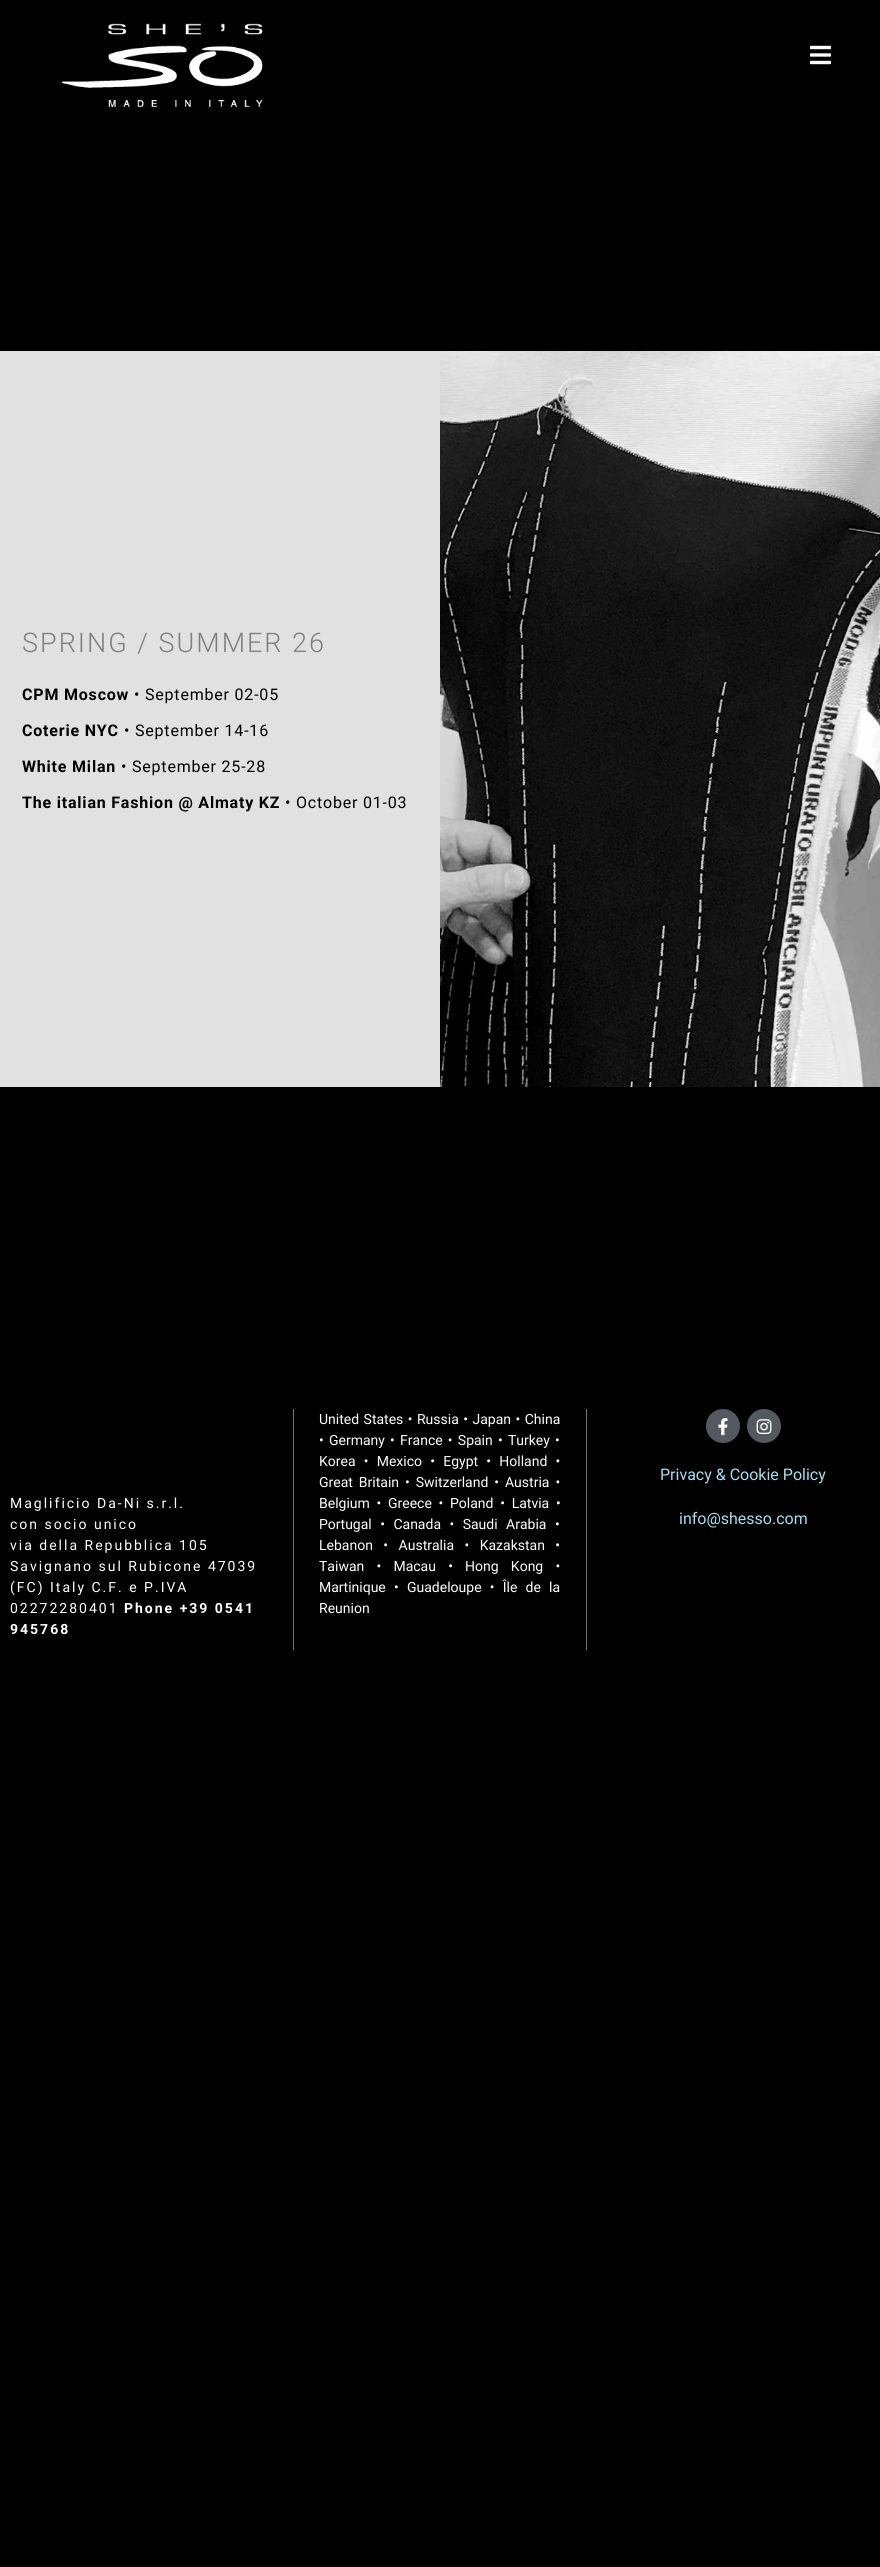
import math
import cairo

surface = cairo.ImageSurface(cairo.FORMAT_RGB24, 880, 2567)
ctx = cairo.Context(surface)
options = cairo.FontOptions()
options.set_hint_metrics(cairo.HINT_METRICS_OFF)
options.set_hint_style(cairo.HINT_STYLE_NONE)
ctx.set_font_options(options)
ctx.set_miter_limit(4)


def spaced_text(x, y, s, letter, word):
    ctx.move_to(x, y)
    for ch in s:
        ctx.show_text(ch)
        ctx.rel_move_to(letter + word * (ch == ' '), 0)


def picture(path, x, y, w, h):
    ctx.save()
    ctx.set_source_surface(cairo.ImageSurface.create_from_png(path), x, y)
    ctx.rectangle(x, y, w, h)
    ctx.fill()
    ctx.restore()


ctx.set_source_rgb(0, 0, 0)
ctx.paint()
picture("img1.png", 62, 23, 201, 84)
picture("img2.png", 810, 45, 21, 20)
ctx.set_source_rgb(0.882, 0.882, 0.882)
ctx.rectangle(0, 351, 440, 736)
ctx.fill()
ctx.select_font_face("Roboto Light")
ctx.set_font_size(27)
ctx.set_source_rgb(0.498, 0.498, 0.498)
spaced_text(22, 652, "SPRING / SUMMER 26", 2, 0)
ctx.select_font_face("Roboto", cairo.FONT_SLANT_NORMAL, cairo.FONT_WEIGHT_BOLD)
ctx.set_font_size(16)
ctx.set_source_rgb(0, 0, 0)
spaced_text(22, 700, "CPM Moscow", 0.8, 0)
ctx.select_font_face("Roboto")
spaced_text(134, 700, "• September 02-05", 0.8, 0)
ctx.select_font_face("Roboto", cairo.FONT_SLANT_NORMAL, cairo.FONT_WEIGHT_BOLD)
spaced_text(22, 736, "Coterie NYC", 0.8, 0)
ctx.select_font_face("Roboto")
spaced_text(124, 736, "• September 14-16", 0.8, 0)
ctx.select_font_face("Roboto", cairo.FONT_SLANT_NORMAL, cairo.FONT_WEIGHT_BOLD)
spaced_text(22, 772, "White Milan", 0.8, 0)
ctx.select_font_face("Roboto")
spaced_text(121, 772, "• September 25-28", 0.8, 0)
ctx.select_font_face("Roboto", cairo.FONT_SLANT_NORMAL, cairo.FONT_WEIGHT_BOLD)
spaced_text(22, 808, "The italian Fashion @ Almaty KZ", 0.8, 0)
ctx.select_font_face("Roboto")
spaced_text(285, 808, "• October 01-03", 0.8, 0)
picture("img3.png", 440, 351, 440, 736)
ctx.set_font_size(14)
ctx.set_source_rgb(1, 1, 1)
spaced_text(10, 1508, "Maglificio Da-Ni s.r.l.", 2, 0)
spaced_text(10, 1529, "con socio unico", 2, 0)
spaced_text(10, 1550, "via della Repubblica 105", 2, 0)
spaced_text(10, 1571, "Savignano sul Rubicone 47039", 2, 0)
spaced_text(10, 1592, "(FC) Italy C.F. e P.IVA", 2, 0)
spaced_text(10, 1613, "02272280401", 2, 0)
ctx.select_font_face("Roboto", cairo.FONT_SLANT_NORMAL, cairo.FONT_WEIGHT_BOLD)
spaced_text(124, 1613, "Phone +39 0541", 2, 0)
spaced_text(10, 1634, "945768", 2, 0)
ctx.set_source_rgb(0.427, 0.439, 0.435)
ctx.rectangle(586, 1409, 1, 241)
ctx.fill()
ctx.rectangle(293, 1409, 1, 241)
ctx.fill()
ctx.select_font_face("Roboto")
ctx.set_source_rgb(1, 1, 1)
spaced_text(319, 1424, "United States • Russia • Japan • China", 0, 1)
spaced_text(319, 1445, "• Germany • France • Spain • Turkey •", 0, 1.75)
spaced_text(319, 1466, "Korea • Mexico • Egypt • Holland •", 0, 4.75)
spaced_text(319, 1487, "Great Britain • Switzerland • Austria •", 0, 2.5)
spaced_text(319, 1508, "Belgium • Greece • Poland • Latvia •", 0, 3.25)
spaced_text(319, 1529, "Portugal • Canada • Saudi Arabia •", 0, 5)
spaced_text(319, 1550, "Lebanon • Australia • Kazakstan •", 0, 7)
spaced_text(319, 1571, "Taiwan • Macau • Hong Kong •", 0, 8.75)
spaced_text(319, 1592, "Martinique • Guadeloupe • Île de la", 0, 4.75)
ctx.move_to(319, 1613)
ctx.show_text("Reunion")
ctx.set_source_rgb(0.329, 0.349, 0.373)
ctx.new_path()
ctx.arc(723, 1426, 17, 0, 2 * math.pi)
ctx.fill()
picture("img4.png", 718, 1418, 10, 18)
ctx.arc(764, 1426, 17, 0, 2 * math.pi)
ctx.fill()
picture("img5.png", 756, 1419, 16, 16)
ctx.set_font_size(16)
ctx.set_source_rgb(0.627, 0.882, 0.941)
ctx.move_to(660, 1480)
ctx.show_text("Privacy & Cookie Policy")
ctx.move_to(679, 1524)
ctx.show_text("info@shesso.com")
surface.write_to_png("page.png")
